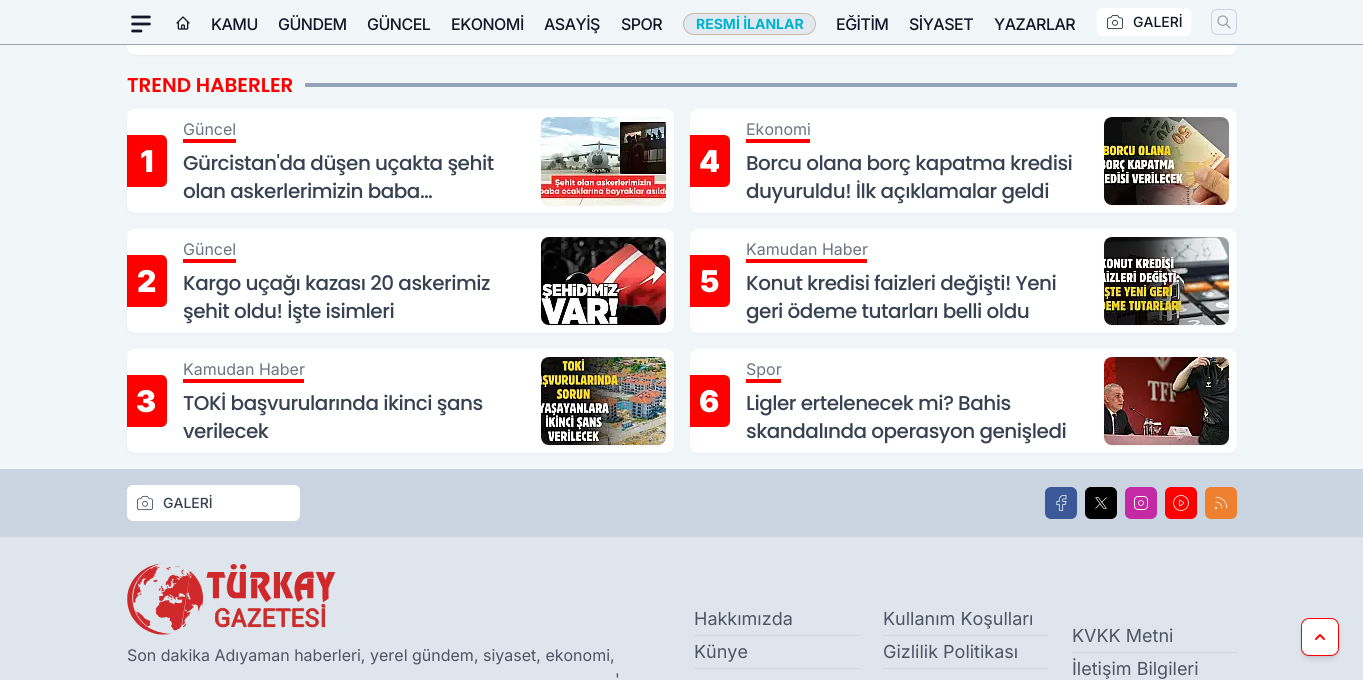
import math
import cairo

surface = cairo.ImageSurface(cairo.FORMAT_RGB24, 1363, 680)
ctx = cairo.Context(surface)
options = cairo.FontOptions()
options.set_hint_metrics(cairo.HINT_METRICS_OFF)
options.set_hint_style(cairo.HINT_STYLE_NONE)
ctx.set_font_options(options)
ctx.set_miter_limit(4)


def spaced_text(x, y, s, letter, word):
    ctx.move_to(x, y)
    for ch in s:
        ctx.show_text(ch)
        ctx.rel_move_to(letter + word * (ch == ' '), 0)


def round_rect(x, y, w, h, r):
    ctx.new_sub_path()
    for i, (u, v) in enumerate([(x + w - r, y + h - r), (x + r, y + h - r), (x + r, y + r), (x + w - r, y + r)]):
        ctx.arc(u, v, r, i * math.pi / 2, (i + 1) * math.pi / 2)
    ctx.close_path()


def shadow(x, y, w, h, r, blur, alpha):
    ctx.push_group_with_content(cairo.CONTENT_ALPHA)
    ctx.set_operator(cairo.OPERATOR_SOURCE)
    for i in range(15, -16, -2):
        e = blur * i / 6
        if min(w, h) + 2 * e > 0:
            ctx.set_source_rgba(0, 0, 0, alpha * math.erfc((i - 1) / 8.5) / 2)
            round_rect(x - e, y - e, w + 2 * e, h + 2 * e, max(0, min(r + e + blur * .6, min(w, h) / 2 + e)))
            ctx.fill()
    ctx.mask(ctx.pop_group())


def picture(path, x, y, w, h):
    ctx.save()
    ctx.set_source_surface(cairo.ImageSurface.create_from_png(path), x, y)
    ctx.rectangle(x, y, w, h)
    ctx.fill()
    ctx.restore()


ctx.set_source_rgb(0.945, 0.961, 0.976)
ctx.paint()
ctx.set_source_rgb(0, 0, 0)
shadow(127, -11, 1110, 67, 8, 1, 0.05)
ctx.set_source_rgb(1, 1, 1)
round_rect(127, -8, 1110, 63, 8)
ctx.fill()
ctx.set_source_rgb(0.945, 0.961, 0.976)
ctx.rectangle(126, 0, 1112, 44)
ctx.fill()
ctx.set_source_rgb(0.58, 0.639, 0.722)
ctx.rectangle(0, 44, 1363, 1)
ctx.fill()
picture("img1.png", 131, 15, 20, 18)
picture("img2.png", 176, 16, 14, 14)
ctx.select_font_face("Inter Medium")
ctx.set_font_size(16)
ctx.set_source_rgb(0.067, 0.094, 0.153)
spaced_text(211, 30, "KAMU", -0.5, 0)
spaced_text(278, 30, "GÜNDEM", -0.5, 0)
spaced_text(367, 30, "GÜNCEL", -0.5, 0)
spaced_text(451, 30, "EKONOMİ", -0.5, 0)
spaced_text(544, 30, "ASAYİŞ", -0.5, 0)
spaced_text(621, 30, "SPOR", -0.5, 0)
ctx.set_source_rgb(0.886, 0.91, 0.941)
round_rect(683.5, 13.5, 132, 21, 10.5)
ctx.fill_preserve()
ctx.set_source_rgb(0.804, 0.722, 0.639)
ctx.set_line_width(1)
ctx.stroke()
ctx.select_font_face("Inter", cairo.FONT_SLANT_NORMAL, cairo.FONT_WEIGHT_BOLD)
ctx.set_font_size(14)
ctx.set_source_rgb(0, 0.706, 0.804)
ctx.move_to(696, 29)
ctx.show_text("RESMİ İLANLAR")
ctx.select_font_face("Inter Medium")
ctx.set_font_size(16)
ctx.set_source_rgb(0.067, 0.094, 0.153)
spaced_text(836, 30, "EĞİTİM", -0.5, 0)
spaced_text(909, 30, "SİYASET", -0.5, 0)
spaced_text(994, 30, "YAZARLAR", -0.5, 0)
ctx.set_source_rgb(1, 1, 1)
round_rect(1097, 8, 94, 28, 6)
ctx.fill()
picture("img3.png", 1107, 14, 16, 16)
ctx.set_font_size(14)
ctx.set_source_rgb(0.067, 0.094, 0.153)
ctx.move_to(1133, 27)
ctx.show_text("GALERİ")
round_rect(1211.5, 9.5, 25, 25, 5.5)
ctx.set_source_rgb(0.796, 0.835, 0.882)
ctx.stroke()
picture("img4.png", 1217, 15, 14, 14)
ctx.select_font_face("Poppins SemiBold")
ctx.set_font_size(20)
ctx.set_source_rgb(1, 0, 0)
ctx.move_to(127, 92)
ctx.show_text("TREND HABERLER")
ctx.set_source_rgb(0.58, 0.639, 0.722)
ctx.rectangle(305, 83, 932, 4)
ctx.fill()
ctx.set_source_rgb(0, 0, 0)
shadow(127, 110, 547, 104, 8, 1, 0.05)
ctx.set_source_rgb(1, 1, 1)
round_rect(127, 109, 547, 104, 8)
ctx.fill()
ctx.set_source_rgb(1, 0, 0)
ctx.new_path()
ctx.move_to(127, 135)
ctx.line_to(161, 135)
ctx.curve_to(164.5, 135, 167, 137.5, 167, 141)
ctx.line_to(167, 181)
ctx.curve_to(167, 184.5, 164.5, 187, 161, 187)
ctx.line_to(127, 187)
ctx.close_path()
ctx.fill()
ctx.select_font_face("Inter Black")
ctx.set_font_size(30)
ctx.set_source_rgb(1, 1, 1)
ctx.move_to(140, 172)
ctx.show_text("1")
ctx.select_font_face("Inter")
ctx.set_font_size(16)
ctx.set_source_rgb(0.42, 0.447, 0.502)
ctx.move_to(183, 135)
ctx.show_text("Güncel")
ctx.set_source_rgb(1, 0, 0)
ctx.rectangle(183, 139, 53, 4)
ctx.fill()
ctx.select_font_face("Poppins Medium")
ctx.set_font_size(20)
ctx.set_source_rgb(0.216, 0.255, 0.318)
spaced_text(183, 170, "Gürcistan'da düşen uçakta şehit", -0.5, 0)
spaced_text(183, 198, "olan askerlerimizin baba…", -0.5, 0)
ctx.set_source_rgb(0, 0, 0)
shadow(541, 118, 125, 88, 8, 1, 0.05)
picture("img5.png", 541, 117, 125, 88)
shadow(127, 230, 547, 104, 8, 1, 0.05)
ctx.set_source_rgb(1, 1, 1)
round_rect(127, 229, 547, 104, 8)
ctx.fill()
ctx.set_source_rgb(1, 0, 0)
ctx.new_path()
ctx.move_to(127, 255)
ctx.line_to(161, 255)
ctx.curve_to(164.5, 255, 167, 257.5, 167, 261)
ctx.line_to(167, 301)
ctx.curve_to(167, 304.5, 164.5, 307, 161, 307)
ctx.line_to(127, 307)
ctx.close_path()
ctx.fill()
ctx.select_font_face("Inter Black")
ctx.set_font_size(30)
ctx.set_source_rgb(1, 1, 1)
ctx.move_to(137, 292)
ctx.show_text("2")
ctx.select_font_face("Inter")
ctx.set_font_size(16)
ctx.set_source_rgb(0.42, 0.447, 0.502)
ctx.move_to(183, 255)
ctx.show_text("Güncel")
ctx.set_source_rgb(1, 0, 0)
ctx.rectangle(183, 259, 53, 4)
ctx.fill()
ctx.select_font_face("Poppins Medium")
ctx.set_font_size(20)
ctx.set_source_rgb(0.216, 0.255, 0.318)
spaced_text(183, 290, "Kargo uçağı kazası 20 askerimiz", -0.5, 0)
spaced_text(183, 318, "şehit oldu! İşte isimleri", -0.5, 0)
ctx.set_source_rgb(0, 0, 0)
shadow(541, 238, 125, 88, 8, 1, 0.05)
picture("img6.png", 541, 237, 125, 88)
shadow(127, 350, 547, 104, 8, 1, 0.05)
ctx.set_source_rgb(1, 1, 1)
round_rect(127, 349, 547, 104, 8)
ctx.fill()
ctx.set_source_rgb(1, 0, 0)
ctx.new_path()
ctx.move_to(127, 375)
ctx.line_to(161, 375)
ctx.curve_to(164.5, 375, 167, 377.5, 167, 381)
ctx.line_to(167, 421)
ctx.curve_to(167, 424.5, 164.5, 427, 161, 427)
ctx.line_to(127, 427)
ctx.close_path()
ctx.fill()
ctx.select_font_face("Inter Black")
ctx.set_font_size(30)
ctx.set_source_rgb(1, 1, 1)
ctx.move_to(136, 412)
ctx.show_text("3")
ctx.select_font_face("Inter")
ctx.set_font_size(16)
ctx.set_source_rgb(0.42, 0.447, 0.502)
ctx.move_to(183, 375)
ctx.show_text("Kamudan Haber")
ctx.set_source_rgb(1, 0, 0)
ctx.rectangle(183, 379, 121, 4)
ctx.fill()
ctx.select_font_face("Poppins Medium")
ctx.set_font_size(20)
ctx.set_source_rgb(0.216, 0.255, 0.318)
spaced_text(183, 410, "TOKİ başvurularında ikinci şans", -0.5, 0)
spaced_text(183, 438, "verilecek", -0.5, 0)
ctx.set_source_rgb(0, 0, 0)
shadow(541, 358, 125, 88, 8, 1, 0.05)
picture("img7.png", 541, 357, 125, 88)
shadow(690, 110, 547, 104, 8, 1, 0.05)
ctx.set_source_rgb(1, 1, 1)
round_rect(690, 109, 547, 104, 8)
ctx.fill()
ctx.set_source_rgb(1, 0, 0)
ctx.new_path()
ctx.move_to(690, 135)
ctx.line_to(724, 135)
ctx.curve_to(727.5, 135, 730, 137.5, 730, 141)
ctx.line_to(730, 181)
ctx.curve_to(730, 184.5, 727.5, 187, 724, 187)
ctx.line_to(690, 187)
ctx.close_path()
ctx.fill()
ctx.select_font_face("Inter Black")
ctx.set_font_size(30)
ctx.set_source_rgb(1, 1, 1)
ctx.move_to(699, 172)
ctx.show_text("4")
ctx.select_font_face("Inter")
ctx.set_font_size(16)
ctx.set_source_rgb(0.42, 0.447, 0.502)
ctx.move_to(746, 135)
ctx.show_text("Ekonomi")
ctx.set_source_rgb(1, 0, 0)
ctx.rectangle(746, 139, 64, 4)
ctx.fill()
ctx.select_font_face("Poppins Medium")
ctx.set_font_size(20)
ctx.set_source_rgb(0.216, 0.255, 0.318)
spaced_text(746, 170, "Borcu olana borç kapatma kredisi", -0.5, 0)
spaced_text(746, 198, "duyuruldu! İlk açıklamalar geldi", -0.5, 0)
ctx.set_source_rgb(0, 0, 0)
shadow(1104, 118, 125, 88, 8, 1, 0.05)
picture("img8.png", 1104, 117, 125, 88)
shadow(690, 230, 547, 104, 8, 1, 0.05)
ctx.set_source_rgb(1, 1, 1)
round_rect(690, 229, 547, 104, 8)
ctx.fill()
ctx.set_source_rgb(1, 0, 0)
ctx.new_path()
ctx.move_to(690, 255)
ctx.line_to(724, 255)
ctx.curve_to(727.5, 255, 730, 257.5, 730, 261)
ctx.line_to(730, 301)
ctx.curve_to(730, 304.5, 727.5, 307, 724, 307)
ctx.line_to(690, 307)
ctx.close_path()
ctx.fill()
ctx.select_font_face("Inter Black")
ctx.set_font_size(30)
ctx.set_source_rgb(1, 1, 1)
ctx.move_to(700, 292)
ctx.show_text("5")
ctx.select_font_face("Inter")
ctx.set_font_size(16)
ctx.set_source_rgb(0.42, 0.447, 0.502)
ctx.move_to(746, 255)
ctx.show_text("Kamudan Haber")
ctx.set_source_rgb(1, 0, 0)
ctx.rectangle(746, 259, 121, 4)
ctx.fill()
ctx.select_font_face("Poppins Medium")
ctx.set_font_size(20)
ctx.set_source_rgb(0.216, 0.255, 0.318)
spaced_text(746, 290, "Konut kredisi faizleri değişti! Yeni", -0.5, 0)
spaced_text(746, 318, "geri ödeme tutarları belli oldu", -0.5, 0)
ctx.set_source_rgb(0, 0, 0)
shadow(1104, 238, 125, 88, 8, 1, 0.05)
picture("img9.png", 1104, 237, 125, 88)
shadow(690, 350, 547, 104, 8, 1, 0.05)
ctx.set_source_rgb(1, 1, 1)
round_rect(690, 349, 547, 104, 8)
ctx.fill()
ctx.set_source_rgb(1, 0, 0)
ctx.new_path()
ctx.move_to(690, 375)
ctx.line_to(724, 375)
ctx.curve_to(727.5, 375, 730, 377.5, 730, 381)
ctx.line_to(730, 421)
ctx.curve_to(730, 424.5, 727.5, 427, 724, 427)
ctx.line_to(690, 427)
ctx.close_path()
ctx.fill()
ctx.select_font_face("Inter Black")
ctx.set_font_size(30)
ctx.set_source_rgb(1, 1, 1)
ctx.move_to(699, 412)
ctx.show_text("6")
ctx.select_font_face("Inter")
ctx.set_font_size(16)
ctx.set_source_rgb(0.42, 0.447, 0.502)
ctx.move_to(746, 375)
ctx.show_text("Spor")
ctx.set_source_rgb(1, 0, 0)
ctx.rectangle(746, 379, 35, 4)
ctx.fill()
ctx.select_font_face("Poppins Medium")
ctx.set_font_size(20)
ctx.set_source_rgb(0.216, 0.255, 0.318)
spaced_text(746, 410, "Ligler ertelenecek mi? Bahis", -0.5, 0)
spaced_text(746, 438, "skandalında operasyon genişledi", -0.5, 0)
ctx.set_source_rgb(0, 0, 0)
shadow(1104, 358, 125, 88, 8, 1, 0.05)
picture("img10.png", 1104, 357, 125, 88)
ctx.set_source_rgb(0.796, 0.835, 0.882)
ctx.rectangle(0, 469, 1363, 68)
ctx.fill()
ctx.set_source_rgb(1, 1, 1)
round_rect(127, 485, 173, 36, 6)
ctx.fill()
picture("img11.png", 137, 495, 16, 16)
ctx.select_font_face("Inter Medium")
ctx.set_font_size(14)
ctx.set_source_rgb(0.216, 0.255, 0.318)
ctx.move_to(163, 508)
ctx.show_text("GALERİ")
ctx.set_source_rgb(0.231, 0.349, 0.596)
round_rect(1045, 487, 32, 32, 6)
ctx.fill()
picture("img12.png", 1056, 495, 11, 16)
ctx.set_source_rgb(0, 0, 0)
round_rect(1085, 487, 32, 32, 6)
ctx.fill()
picture("img13.png", 1095, 497, 12, 12)
ctx.set_source_rgb(0.765, 0.165, 0.639)
round_rect(1125, 487, 32, 32, 6)
ctx.fill()
picture("img14.png", 1134, 496, 14, 14)
ctx.set_source_rgb(1, 0, 0)
round_rect(1165, 487, 32, 32, 6)
ctx.fill()
picture("img15.png", 1173, 495, 16, 16)
ctx.set_source_rgb(0.933, 0.502, 0.184)
round_rect(1205, 487, 32, 32, 6)
ctx.fill()
picture("img16.png", 1214, 496, 14, 14)
ctx.set_source_rgb(0.871, 0.898, 0.929)
ctx.rectangle(0, 537, 1363, 143)
ctx.fill()
picture("img17.png", 127, 563, 209, 72)
ctx.select_font_face("Inter")
ctx.set_font_size(16)
ctx.set_source_rgb(0.294, 0.333, 0.388)
ctx.move_to(127, 661)
ctx.show_text("Son dakika Adıyaman haberleri, yerel gündem, siyaset, ekonomi,")
ctx.move_to(615, 685)
ctx.show_text("'")
ctx.set_font_size(18)
ctx.move_to(694, 625)
ctx.show_text("Hakkımızda")
ctx.set_source_rgb(0.824, 0.851, 0.886)
ctx.rectangle(694, 635, 165, 1)
ctx.fill()
ctx.set_source_rgb(0.294, 0.333, 0.388)
ctx.move_to(694, 658)
ctx.show_text("Künye")
ctx.set_source_rgb(0.824, 0.851, 0.886)
ctx.rectangle(694, 668, 165, 1)
ctx.fill()
ctx.set_source_rgb(0.294, 0.333, 0.388)
ctx.move_to(883, 625)
ctx.show_text("Kullanım Koşulları")
ctx.set_source_rgb(0.824, 0.851, 0.886)
ctx.rectangle(883, 635, 165, 1)
ctx.fill()
ctx.set_source_rgb(0.294, 0.333, 0.388)
ctx.move_to(883, 658)
ctx.show_text("Gizlilik Politikası")
ctx.set_source_rgb(0.824, 0.851, 0.886)
ctx.rectangle(883, 668, 165, 1)
ctx.fill()
ctx.set_source_rgb(0.294, 0.333, 0.388)
ctx.move_to(1072, 642)
ctx.show_text("KVKK Metni")
ctx.set_source_rgb(0.824, 0.851, 0.886)
ctx.rectangle(1072, 652, 165, 1)
ctx.fill()
ctx.set_source_rgb(0.294, 0.333, 0.388)
ctx.move_to(1072, 675)
ctx.show_text("İletişim Bilgileri")
ctx.set_source_rgb(0, 0, 0)
shadow(1303, 622, 34, 34, 6, 2, 0.1)
shadow(1302, 623, 36, 36, 7, 3, 0.1)
ctx.set_source_rgb(1, 1, 1)
round_rect(1301.5, 618.5, 37, 37, 7.5)
ctx.fill_preserve()
ctx.set_source_rgb(1, 0, 0)
ctx.stroke()
picture("img18.png", 1315, 634, 10, 6)
surface.write_to_png("page.png")
